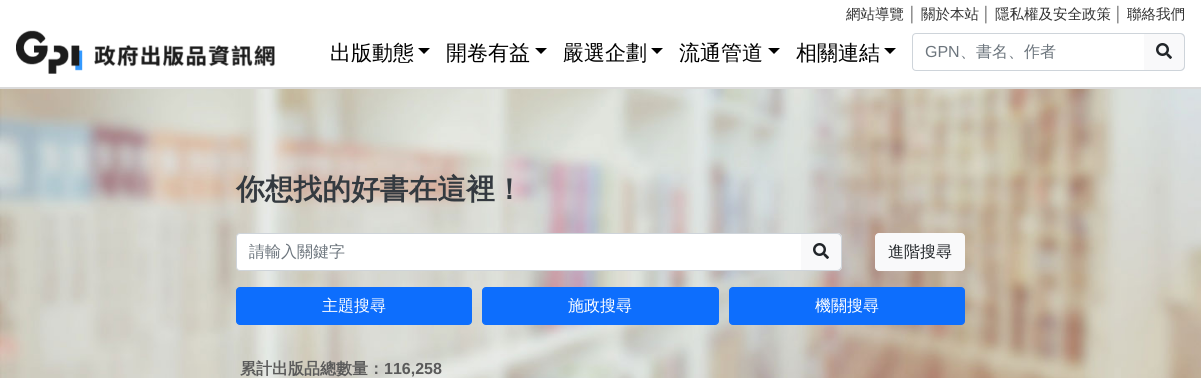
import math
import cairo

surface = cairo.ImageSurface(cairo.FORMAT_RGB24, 1201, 378)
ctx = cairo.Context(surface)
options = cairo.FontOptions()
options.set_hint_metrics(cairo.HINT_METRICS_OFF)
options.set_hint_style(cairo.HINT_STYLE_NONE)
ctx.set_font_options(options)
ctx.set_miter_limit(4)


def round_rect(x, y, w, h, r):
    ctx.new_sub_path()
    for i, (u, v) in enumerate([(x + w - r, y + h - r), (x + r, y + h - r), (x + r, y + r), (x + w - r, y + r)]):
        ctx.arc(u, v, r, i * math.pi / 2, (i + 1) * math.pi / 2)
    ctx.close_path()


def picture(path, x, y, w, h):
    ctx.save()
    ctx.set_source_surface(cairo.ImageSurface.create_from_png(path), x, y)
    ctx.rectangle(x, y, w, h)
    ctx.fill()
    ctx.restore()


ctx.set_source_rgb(1, 1, 1)
ctx.paint()
ctx.set_source_rgb(0.855, 0.855, 0.855)
ctx.rectangle(0, 87, 1201, 2)
ctx.fill()
ctx.select_font_face("WenQuanYi Zen Hei Medium")
ctx.set_font_size(14.5)
ctx.set_source_rgb(0.196, 0.196, 0.196)
ctx.move_to(846, 19)
ctx.show_text("網站導覽")
ctx.select_font_face("Liberation Sans")
ctx.set_source_rgb(0.353, 0.353, 0.353)
ctx.move_to(908, 19)
ctx.show_text("│")
ctx.select_font_face("WenQuanYi Zen Hei Medium")
ctx.set_source_rgb(0.196, 0.196, 0.196)
ctx.move_to(921, 19)
ctx.show_text("關於本站")
ctx.select_font_face("Liberation Sans")
ctx.set_source_rgb(0.353, 0.353, 0.353)
ctx.move_to(982, 19)
ctx.show_text("│")
ctx.select_font_face("WenQuanYi Zen Hei Medium")
ctx.set_source_rgb(0.196, 0.196, 0.196)
ctx.move_to(995, 19)
ctx.show_text("隱私權及安全政策")
ctx.select_font_face("Liberation Sans")
ctx.set_source_rgb(0.353, 0.353, 0.353)
ctx.move_to(1114, 19)
ctx.show_text("│")
ctx.select_font_face("WenQuanYi Zen Hei Medium")
ctx.set_source_rgb(0.196, 0.196, 0.196)
ctx.move_to(1127, 19)
ctx.show_text("聯絡我們")
picture("img1.png", 16, 30, 259, 44)
ctx.set_font_size(21)
ctx.set_source_rgb(0, 0, 0)
ctx.move_to(330, 60)
ctx.show_text("出版動態")
ctx.new_path()
ctx.move_to(418, 48)
ctx.line_to(430, 48)
ctx.line_to(424, 54)
ctx.close_path()
ctx.fill()
ctx.move_to(446, 60)
ctx.show_text("開卷有益")
ctx.new_path()
ctx.move_to(535, 48)
ctx.line_to(547, 48)
ctx.line_to(541, 54)
ctx.close_path()
ctx.fill()
ctx.move_to(563, 60)
ctx.show_text("嚴選企劃")
ctx.new_path()
ctx.move_to(651, 48)
ctx.line_to(663, 48)
ctx.line_to(657, 54)
ctx.close_path()
ctx.fill()
ctx.move_to(679, 60)
ctx.show_text("流通管道")
ctx.new_path()
ctx.move_to(768, 48)
ctx.line_to(780, 48)
ctx.line_to(774, 54)
ctx.close_path()
ctx.fill()
ctx.move_to(796, 60)
ctx.show_text("相關連結")
ctx.new_path()
ctx.move_to(884, 48)
ctx.line_to(896, 48)
ctx.line_to(890, 54)
ctx.close_path()
ctx.fill()
ctx.new_path()
ctx.move_to(916, 33.5)
ctx.line_to(1144.5, 33.5)
ctx.line_to(1144.5, 70.5)
ctx.line_to(916, 70.5)
ctx.curve_to(914, 70.5, 912.5, 69, 912.5, 67)
ctx.line_to(912.5, 37)
ctx.curve_to(912.5, 35, 914, 33.5, 916, 33.5)
ctx.close_path()
ctx.set_source_rgb(0.808, 0.831, 0.855)
ctx.set_line_width(1)
ctx.stroke()
ctx.select_font_face("Liberation Sans")
ctx.set_font_size(16)
ctx.set_source_rgb(0.424, 0.459, 0.49)
ctx.move_to(925, 57)
ctx.show_text("GPN")
ctx.select_font_face("WenQuanYi Zen Hei Medium")
ctx.move_to(960, 57)
ctx.show_text("、書名、作者")
ctx.set_source_rgb(0.973, 0.976, 0.98)
ctx.new_path()
ctx.move_to(1144, 33)
ctx.line_to(1180, 33)
ctx.curve_to(1183, 33, 1185, 35, 1185, 38)
ctx.line_to(1185, 66)
ctx.curve_to(1185, 69, 1183, 71, 1180, 71)
ctx.line_to(1144, 71)
ctx.close_path()
ctx.fill()
ctx.set_source_rgb(0.808, 0.831, 0.855)
ctx.set_fill_rule(cairo.FILL_RULE_EVEN_ODD)
ctx.new_path()
ctx.move_to(1144, 33)
ctx.line_to(1180, 33)
ctx.curve_to(1183, 33, 1185, 35, 1185, 38)
ctx.line_to(1185, 66)
ctx.curve_to(1185, 69, 1183, 71, 1180, 71)
ctx.line_to(1144, 71)
ctx.close_path()
ctx.move_to(1144, 34)
ctx.line_to(1180, 34)
ctx.curve_to(1182, 34, 1184, 36, 1184, 38)
ctx.line_to(1184, 66)
ctx.curve_to(1184, 68, 1182, 70, 1180, 70)
ctx.line_to(1144, 70)
ctx.close_path()
ctx.fill()
picture("img2.png", 1156, 43, 16, 16)
picture("img3.png", 0, 89, 1201, 289)
ctx.select_font_face("WenQuanYi Zen Hei", cairo.FONT_SLANT_NORMAL, cairo.FONT_WEIGHT_BOLD)
ctx.set_font_size(28.75)
ctx.set_source_rgb(0.204, 0.227, 0.251)
ctx.move_to(236, 199)
ctx.show_text("你想找的好書在這裡！")
ctx.set_source_rgb(1, 1, 1)
ctx.new_path()
ctx.move_to(240, 233.5)
ctx.line_to(801.5, 233.5)
ctx.line_to(801.5, 270.5)
ctx.line_to(240, 270.5)
ctx.curve_to(238, 270.5, 236.5, 269, 236.5, 267)
ctx.line_to(236.5, 237)
ctx.curve_to(236.5, 235, 238, 233.5, 240, 233.5)
ctx.close_path()
ctx.fill_preserve()
ctx.set_source_rgb(0.808, 0.831, 0.855)
ctx.stroke()
ctx.save()
ctx.set_fill_rule(cairo.FILL_RULE_WINDING)
ctx.rectangle(249, 242, 540, 21)
ctx.clip()
ctx.select_font_face("WenQuanYi Zen Hei Medium")
ctx.set_font_size(16)
ctx.set_source_rgb(0.424, 0.459, 0.49)
ctx.move_to(249, 257)
ctx.show_text("請輸入關鍵字")
ctx.restore()
ctx.set_source_rgb(0.973, 0.976, 0.98)
ctx.new_path()
ctx.move_to(801, 233)
ctx.line_to(837, 233)
ctx.curve_to(840, 233, 842, 235, 842, 238)
ctx.line_to(842, 266)
ctx.curve_to(842, 269, 840, 271, 837, 271)
ctx.line_to(801, 271)
ctx.close_path()
ctx.fill()
ctx.set_source_rgb(0.808, 0.831, 0.855)
ctx.new_path()
ctx.move_to(801, 233)
ctx.line_to(837, 233)
ctx.curve_to(840, 233, 842, 235, 842, 238)
ctx.line_to(842, 266)
ctx.curve_to(842, 269, 840, 271, 837, 271)
ctx.line_to(801, 271)
ctx.close_path()
ctx.move_to(801, 234)
ctx.line_to(837, 234)
ctx.curve_to(839, 234, 841, 236, 841, 238)
ctx.line_to(841, 266)
ctx.curve_to(841, 268, 839, 270, 837, 270)
ctx.line_to(801, 270)
ctx.close_path()
ctx.fill()
picture("img2.png", 813, 243, 16, 16)
ctx.set_source_rgb(0.973, 0.976, 0.98)
round_rect(875.5, 233.5, 89, 37, 3.5)
ctx.fill_preserve()
ctx.stroke()
ctx.select_font_face("WenQuanYi Zen Hei Medium")
ctx.set_font_size(16)
ctx.set_source_rgb(0.129, 0.145, 0.161)
ctx.move_to(888, 257)
ctx.show_text("進階搜尋")
ctx.set_source_rgb(0.051, 0.431, 0.992)
round_rect(236.5, 287.5, 235, 37, 3.5)
ctx.fill_preserve()
ctx.stroke()
ctx.set_source_rgb(1, 1, 1)
ctx.move_to(322, 311)
ctx.show_text("主題搜尋")
ctx.set_source_rgb(0.051, 0.431, 0.992)
round_rect(482.5, 287.5, 236, 37, 3.5)
ctx.fill_preserve()
ctx.stroke()
ctx.set_source_rgb(1, 1, 1)
ctx.move_to(568, 311)
ctx.show_text("施政搜尋")
ctx.set_source_rgb(0.051, 0.431, 0.992)
round_rect(729.5, 287.5, 235, 37, 3.5)
ctx.fill_preserve()
ctx.stroke()
ctx.set_source_rgb(1, 1, 1)
ctx.move_to(815, 311)
ctx.show_text("機關搜尋")
ctx.select_font_face("WenQuanYi Zen Hei", cairo.FONT_SLANT_NORMAL, cairo.FONT_WEIGHT_BOLD)
ctx.set_source_rgb(0.353, 0.353, 0.353)
ctx.move_to(240, 374)
ctx.show_text("累計出版品總數量：")
ctx.select_font_face("Liberation Sans", cairo.FONT_SLANT_NORMAL, cairo.FONT_WEIGHT_BOLD)
ctx.move_to(384, 374)
ctx.show_text("116,258")
surface.write_to_png("page.png")
